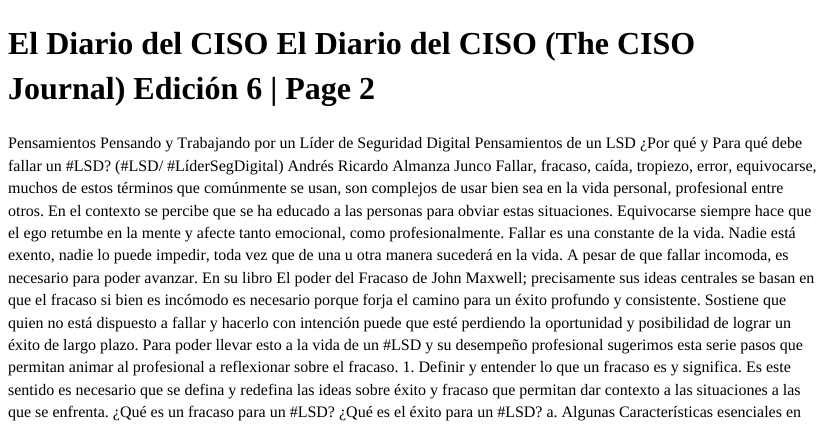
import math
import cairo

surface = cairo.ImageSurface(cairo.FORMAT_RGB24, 828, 428)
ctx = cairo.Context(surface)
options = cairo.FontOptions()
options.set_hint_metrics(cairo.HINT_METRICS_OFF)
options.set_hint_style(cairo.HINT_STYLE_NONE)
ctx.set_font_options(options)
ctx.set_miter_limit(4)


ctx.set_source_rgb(1, 1, 1)
ctx.paint()
ctx.select_font_face("Liberation Serif", cairo.FONT_SLANT_NORMAL, cairo.FONT_WEIGHT_BOLD)
ctx.set_font_size(32)
ctx.set_source_rgb(0, 0, 0)
ctx.move_to(8, 54)
ctx.show_text("El Diario del CISO El Diario del CISO (The CISO")
ctx.move_to(8, 99)
ctx.show_text("Journal) Edición 6 | Page 2")
ctx.select_font_face("Liberation Serif")
ctx.set_font_size(16)
ctx.move_to(8, 148)
ctx.show_text("Pensamientos Pensando y Trabajando por un Líder de Seguridad Digital Pensamientos de un LSD ¿Por qué y Para qué debe")
ctx.move_to(8, 171)
ctx.show_text("fallar un #LSD? (#LSD/ #LíderSegDigital) Andrés Ricardo Almanza Junco Fallar, fracaso, caída, tropiezo, error, equivocarse,")
ctx.move_to(8, 193)
ctx.show_text("muchos de estos términos que comúnmente se usan, son complejos de usar bien sea en la vida personal, profesional entre")
ctx.move_to(8, 216)
ctx.show_text("otros. En el contexto se percibe que se ha educado a las personas para obviar estas situaciones. Equivocarse siempre hace que")
ctx.move_to(8, 238)
ctx.show_text("el ego retumbe en la mente y afecte tanto emocional, como profesionalmente. Fallar es una constante de la vida. Nadie está")
ctx.move_to(8, 260)
ctx.show_text("exento, nadie lo puede impedir, toda vez que de una u otra manera sucederá en la vida. A pesar de que fallar incomoda, es")
ctx.move_to(8, 283)
ctx.show_text("necesario para poder avanzar. En su libro El poder del Fracaso de John Maxwell; precisamente sus ideas centrales se basan en")
ctx.move_to(8, 305)
ctx.show_text("que el fracaso si bien es incómodo es necesario porque forja el camino para un éxito profundo y consistente. Sostiene que")
ctx.move_to(8, 328)
ctx.show_text("quien no está dispuesto a fallar y hacerlo con intención puede que esté perdiendo la oportunidad y posibilidad de lograr un")
ctx.move_to(8, 350)
ctx.show_text("éxito de largo plazo. Para poder llevar esto a la vida de un #LSD y su desempeño profesional sugerimos esta serie pasos que")
ctx.move_to(8, 372)
ctx.show_text("permitan animar al profesional a reflexionar sobre el fracaso. 1. Definir y entender lo que un fracaso es y significa. Es este")
ctx.move_to(8, 395)
ctx.show_text("sentido es necesario que se defina y redefina las ideas sobre éxito y fracaso que permitan dar contexto a las situaciones a las")
ctx.move_to(8, 417)
ctx.show_text("que se enfrenta. ¿Qué es un fracaso para un #LSD? ¿Qué es el éxito para un #LSD? a. Algunas Características esenciales en")
surface.write_to_png("page.png")
